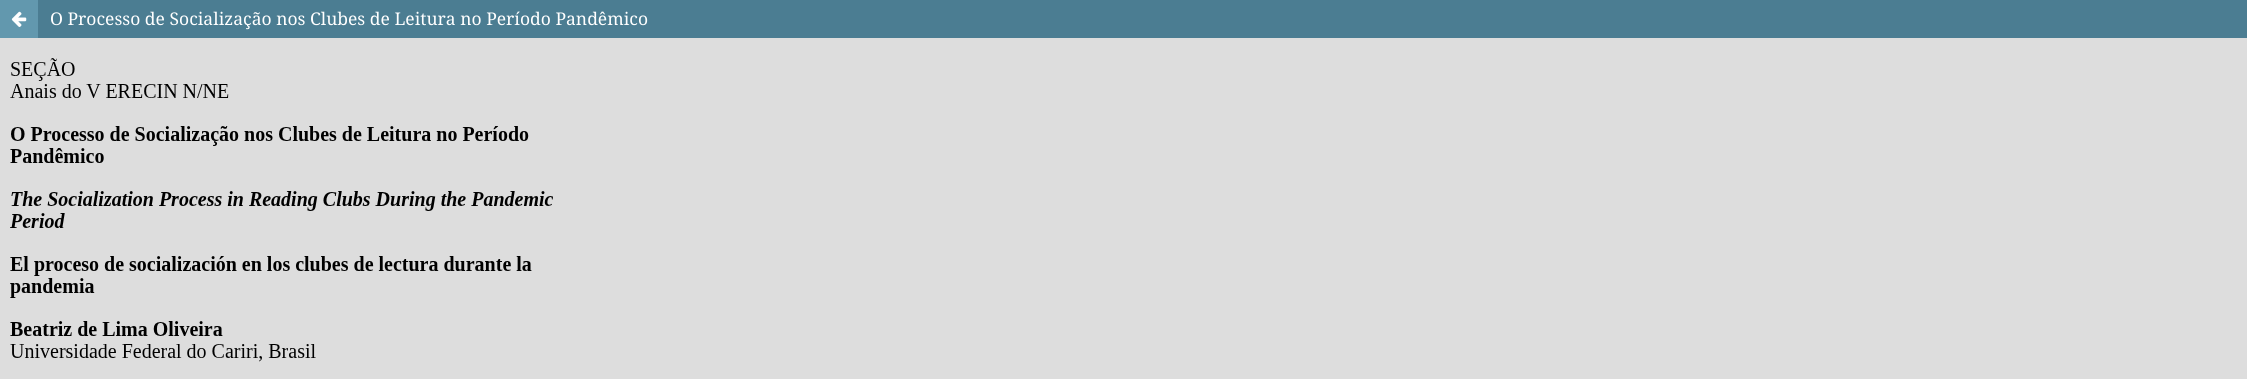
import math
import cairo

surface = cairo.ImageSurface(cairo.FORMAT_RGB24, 2247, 379)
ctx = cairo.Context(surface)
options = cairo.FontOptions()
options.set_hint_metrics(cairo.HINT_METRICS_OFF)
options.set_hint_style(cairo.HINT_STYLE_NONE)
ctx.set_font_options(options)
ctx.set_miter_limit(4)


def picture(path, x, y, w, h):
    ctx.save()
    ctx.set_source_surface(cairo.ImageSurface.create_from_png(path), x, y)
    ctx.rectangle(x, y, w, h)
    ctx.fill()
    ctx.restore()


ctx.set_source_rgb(0.867, 0.867, 0.867)
ctx.paint()
ctx.set_source_rgb(0.294, 0.49, 0.573)
ctx.rectangle(38, 0, 2209, 38)
ctx.fill()
ctx.set_source_rgb(0.384, 0.596, 0.682)
ctx.rectangle(0, 0, 38, 38)
ctx.fill()
picture("img1.png", 11, 11, 16, 16)
ctx.select_font_face("Noto Serif")
ctx.set_font_size(17.5)
ctx.set_source_rgb(1, 1, 1)
ctx.move_to(50, 25)
ctx.show_text("O Processo de Socialização nos Clubes de Leitura no Período Pandêmico")
picture("img2.png", 10, 58, 543, 304)
surface.write_to_png("page.png")
